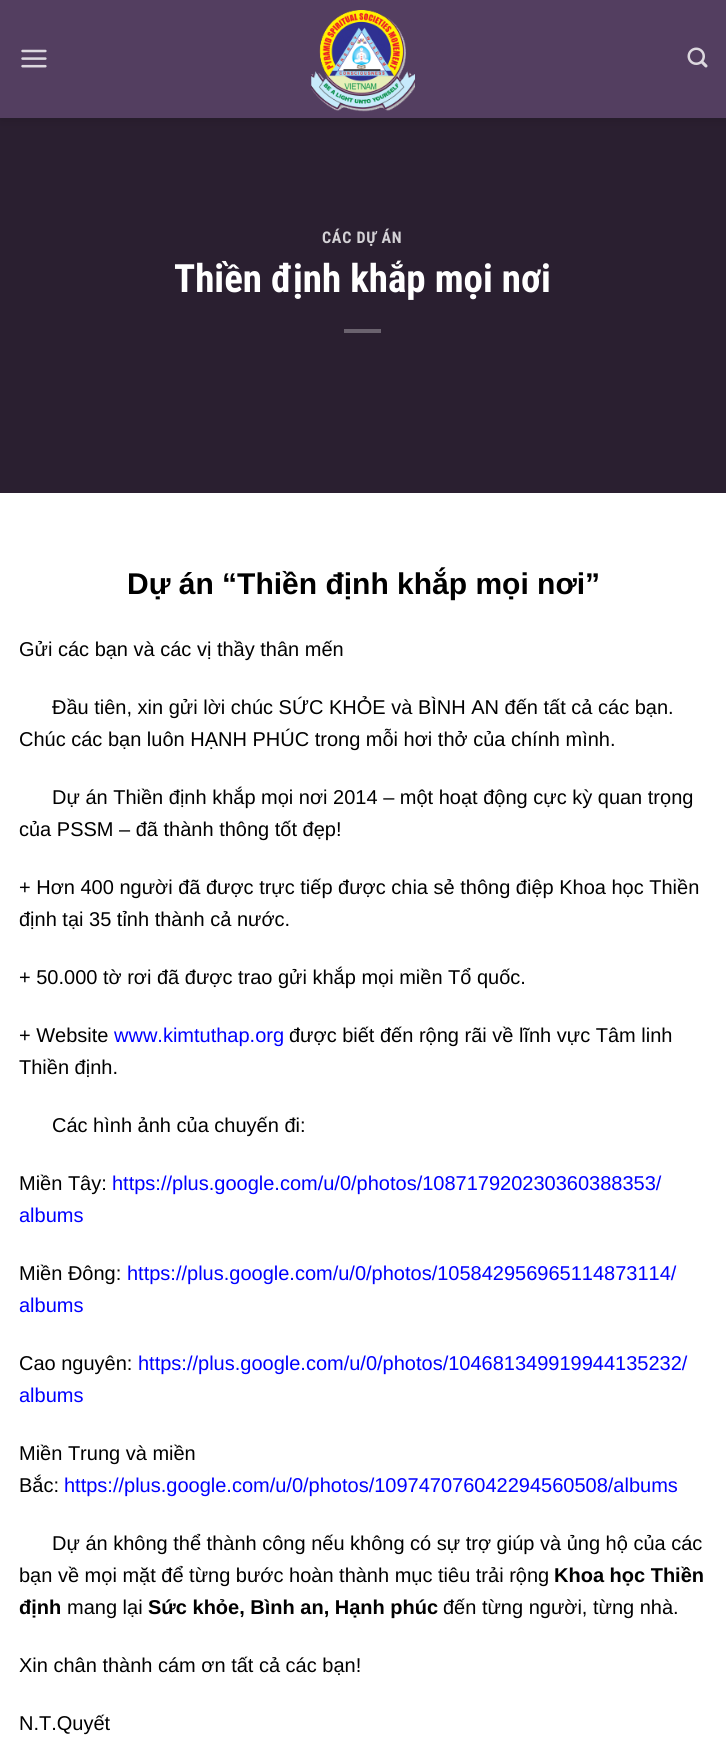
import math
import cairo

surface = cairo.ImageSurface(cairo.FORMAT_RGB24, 726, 1755)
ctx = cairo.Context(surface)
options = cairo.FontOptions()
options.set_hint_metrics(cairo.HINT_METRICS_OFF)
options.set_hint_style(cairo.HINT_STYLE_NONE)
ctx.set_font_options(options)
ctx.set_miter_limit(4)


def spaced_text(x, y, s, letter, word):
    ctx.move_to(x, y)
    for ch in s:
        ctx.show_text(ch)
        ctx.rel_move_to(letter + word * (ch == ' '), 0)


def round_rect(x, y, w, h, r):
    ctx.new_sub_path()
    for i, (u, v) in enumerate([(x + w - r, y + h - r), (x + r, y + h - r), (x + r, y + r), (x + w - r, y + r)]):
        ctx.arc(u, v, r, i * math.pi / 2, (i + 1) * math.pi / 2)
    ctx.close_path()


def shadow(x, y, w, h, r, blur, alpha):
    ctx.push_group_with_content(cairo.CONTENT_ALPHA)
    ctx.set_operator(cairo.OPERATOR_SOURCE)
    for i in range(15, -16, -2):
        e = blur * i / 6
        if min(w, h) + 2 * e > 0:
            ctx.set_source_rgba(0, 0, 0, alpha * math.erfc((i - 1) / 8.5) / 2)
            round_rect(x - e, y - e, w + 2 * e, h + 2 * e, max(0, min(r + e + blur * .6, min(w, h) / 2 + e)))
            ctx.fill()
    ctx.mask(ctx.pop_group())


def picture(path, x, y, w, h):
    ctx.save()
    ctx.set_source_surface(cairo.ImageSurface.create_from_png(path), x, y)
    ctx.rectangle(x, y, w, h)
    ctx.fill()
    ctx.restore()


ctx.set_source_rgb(1, 1, 1)
ctx.paint()
ctx.set_source_rgb(0.165, 0.122, 0.188)
ctx.rectangle(0, 118, 726, 375)
ctx.fill()
ctx.set_source_rgb(0, 0, 0)
shadow(1, 1, 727, 118, 0, 6, 0.15)
ctx.set_source_rgb(0.325, 0.243, 0.376)
ctx.rectangle(0, 0, 726, 118)
ctx.fill()
picture("img1.png", 21, 49, 26, 19)
picture("img2.png", 311, 10, 104, 102)
picture("img3.png", 687, 47, 21, 21)
ctx.select_font_face("Roboto Condensed", cairo.FONT_SLANT_NORMAL, cairo.FONT_WEIGHT_BOLD)
ctx.set_font_size(16)
ctx.set_source_rgb(0.831, 0.824, 0.839)
spaced_text(322, 243, "CÁC DỰ ÁN", 0.75, 0)
ctx.set_font_size(39)
ctx.set_source_rgb(1, 1, 1)
ctx.move_to(174, 292)
ctx.show_text("Thiền định khắp mọi nơi")
ctx.set_source_rgb(0.416, 0.384, 0.431)
ctx.rectangle(344, 329, 37, 4)
ctx.fill()
ctx.select_font_face("Liberation Sans", cairo.FONT_SLANT_NORMAL, cairo.FONT_WEIGHT_BOLD)
ctx.set_font_size(30)
ctx.set_source_rgb(0, 0, 0)
ctx.move_to(127, 594)
ctx.show_text("Dự án “Thiền định khắp mọi nơi”")
ctx.select_font_face("Liberation Sans")
ctx.set_font_size(20)
ctx.move_to(19, 656)
ctx.show_text("Gửi các bạn và các vị thầy thân mến")
ctx.move_to(52, 714)
ctx.show_text("Đầu tiên, xin gửi lời chúc SỨC KHỎE và BÌNH AN đến tất cả các bạn.")
ctx.move_to(19, 746)
ctx.show_text("Chúc các bạn luôn HẠNH PHÚC trong mỗi hơi thở của chính mình.")
ctx.move_to(52, 804)
ctx.show_text("Dự án Thiền định khắp mọi nơi 2014 – một hoạt động cực kỳ quan trọng")
ctx.move_to(19, 836)
ctx.show_text("của PSSM – đã thành thông tốt đẹp!")
ctx.move_to(19, 894)
ctx.show_text("+ Hơn 400 người đã được trực tiếp được chia sẻ thông điệp Khoa học Thiền")
ctx.move_to(19, 926)
ctx.show_text("định tại 35 tỉnh thành cả nước.")
ctx.move_to(19, 984)
ctx.show_text("+ 50.000 tờ rơi đã được trao gửi khắp mọi miền Tổ quốc.")
ctx.move_to(19, 1042)
ctx.show_text("+ Website")
ctx.set_source_rgb(0, 0, 1)
ctx.move_to(114, 1042)
ctx.show_text("www.kimtuthap.org")
ctx.set_source_rgb(0, 0, 0)
ctx.move_to(289, 1042)
ctx.show_text("được biết đến rộng rãi về lĩnh vực Tâm linh")
ctx.move_to(19, 1074)
ctx.show_text("Thiền định.")
ctx.move_to(52, 1132)
ctx.show_text("Các hình ảnh của chuyến đi:")
ctx.move_to(19, 1190)
ctx.show_text("Miền Tây:")
ctx.set_source_rgb(0, 0, 1)
ctx.move_to(112, 1190)
ctx.show_text("https://plus.google.com/u/0/photos/108717920230360388353/")
ctx.move_to(19, 1222)
ctx.show_text("albums")
ctx.set_source_rgb(0, 0, 0)
ctx.move_to(19, 1280)
ctx.show_text("Miền Đông:")
ctx.set_source_rgb(0, 0, 1)
ctx.move_to(127, 1280)
ctx.show_text("https://plus.google.com/u/0/photos/105842956965114873114/")
ctx.move_to(19, 1312)
ctx.show_text("albums")
ctx.set_source_rgb(0, 0, 0)
ctx.move_to(19, 1370)
ctx.show_text("Cao nguyên:")
ctx.set_source_rgb(0, 0, 1)
ctx.move_to(138, 1370)
ctx.show_text("https://plus.google.com/u/0/photos/104681349919944135232/")
ctx.move_to(19, 1402)
ctx.show_text("albums")
ctx.set_source_rgb(0, 0, 0)
ctx.move_to(19, 1460)
ctx.show_text("Miền Trung và miền")
ctx.move_to(19, 1492)
ctx.show_text("Bắc:")
ctx.set_source_rgb(0, 0, 1)
ctx.move_to(64, 1492)
ctx.show_text("https://plus.google.com/u/0/photos/109747076042294560508/albums")
ctx.set_source_rgb(0, 0, 0)
ctx.move_to(52, 1550)
ctx.show_text("Dự án không thể thành công nếu không có sự trợ giúp và ủng hộ của các")
ctx.move_to(19, 1582)
ctx.show_text("bạn về mọi mặt để từng bước hoàn thành mục tiêu trải rộng")
ctx.select_font_face("Liberation Sans", cairo.FONT_SLANT_NORMAL, cairo.FONT_WEIGHT_BOLD)
ctx.move_to(554, 1582)
ctx.show_text("Khoa học Thiền")
ctx.move_to(19, 1614)
ctx.show_text("định")
ctx.select_font_face("Liberation Sans")
ctx.move_to(67, 1614)
ctx.show_text("mang lại")
ctx.select_font_face("Liberation Sans", cairo.FONT_SLANT_NORMAL, cairo.FONT_WEIGHT_BOLD)
ctx.move_to(148, 1614)
ctx.show_text("Sức khỏe, Bình an, Hạnh phúc")
ctx.select_font_face("Liberation Sans")
ctx.move_to(443, 1614)
ctx.show_text("đến từng người, từng nhà.")
ctx.move_to(19, 1672)
ctx.show_text("Xin chân thành cám ơn tất cả các bạn!")
ctx.move_to(19, 1730)
ctx.show_text("N.T.Quyết")
surface.write_to_png("page.png")
